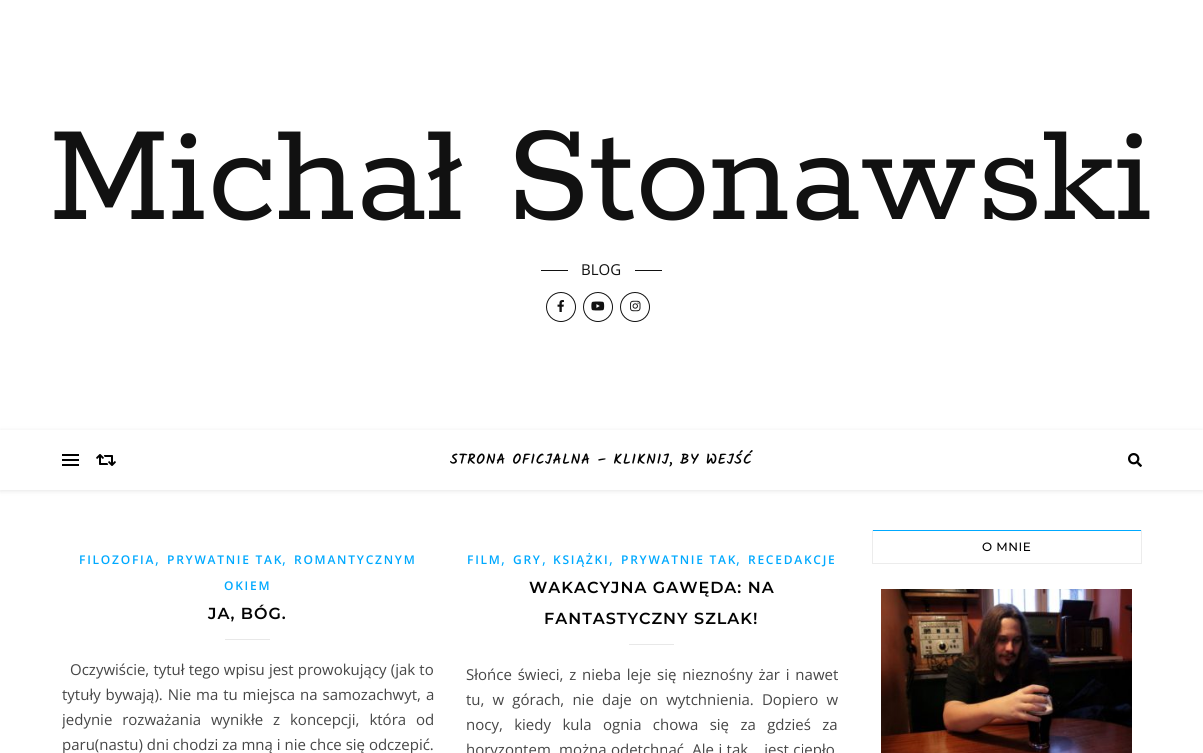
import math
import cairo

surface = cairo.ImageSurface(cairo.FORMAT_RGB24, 1203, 753)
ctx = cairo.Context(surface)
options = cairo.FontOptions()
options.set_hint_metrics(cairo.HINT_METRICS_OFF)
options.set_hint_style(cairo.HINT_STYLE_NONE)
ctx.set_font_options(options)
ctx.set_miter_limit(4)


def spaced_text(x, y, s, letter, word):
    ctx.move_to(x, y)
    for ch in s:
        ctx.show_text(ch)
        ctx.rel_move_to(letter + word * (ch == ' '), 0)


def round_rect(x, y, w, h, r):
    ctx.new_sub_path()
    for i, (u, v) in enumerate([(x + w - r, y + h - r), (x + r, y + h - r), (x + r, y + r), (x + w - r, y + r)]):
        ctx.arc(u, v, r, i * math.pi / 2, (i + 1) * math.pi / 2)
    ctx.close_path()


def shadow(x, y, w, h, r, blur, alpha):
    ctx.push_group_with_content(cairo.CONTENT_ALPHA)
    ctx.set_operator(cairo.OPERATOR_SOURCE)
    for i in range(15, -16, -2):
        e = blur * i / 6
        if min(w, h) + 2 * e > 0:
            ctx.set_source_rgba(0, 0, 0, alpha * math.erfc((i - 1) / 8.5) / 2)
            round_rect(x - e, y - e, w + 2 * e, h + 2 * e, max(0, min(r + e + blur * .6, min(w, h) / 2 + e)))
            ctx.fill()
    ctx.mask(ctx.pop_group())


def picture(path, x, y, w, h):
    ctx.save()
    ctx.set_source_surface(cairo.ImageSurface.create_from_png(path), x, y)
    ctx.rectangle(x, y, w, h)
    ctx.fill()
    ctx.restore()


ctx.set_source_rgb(1, 1, 1)
ctx.paint()
ctx.select_font_face("Rokkitt SemiBold")
ctx.set_font_size(150)
ctx.set_source_rgb(0.067, 0.067, 0.067)
ctx.move_to(49, 219)
ctx.show_text("Michał Stonawski")
ctx.rectangle(541, 270, 27, 1)
ctx.fill()
ctx.select_font_face("Open Sans")
ctx.set_font_size(15)
ctx.move_to(581, 275)
ctx.show_text("BLOG")
ctx.rectangle(635, 270, 27, 1)
ctx.fill()
ctx.arc(561, 307, 14.5, 0, 2 * math.pi)
ctx.set_line_width(1)
ctx.stroke()
picture("img1.png", 557, 300, 7, 12)
ctx.arc(598, 307, 14.5, 0, 2 * math.pi)
ctx.stroke()
picture("img2.png", 591, 301, 14, 10)
ctx.arc(635, 307, 14.5, 0, 2 * math.pi)
ctx.stroke()
picture("img3.png", 630, 300, 11, 12)
ctx.save()
ctx.set_fill_rule(cairo.FILL_RULE_EVEN_ODD)
ctx.new_path()
ctx.move_to(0, 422)
ctx.line_to(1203, 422)
ctx.line_to(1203, 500)
ctx.line_to(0, 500)
ctx.close_path()
ctx.move_to(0, 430)
ctx.line_to(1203, 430)
ctx.line_to(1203, 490)
ctx.line_to(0, 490)
ctx.close_path()
ctx.clip()
ctx.set_source_rgb(0, 0, 0)
shadow(0, 431, 1203, 60, 0, 2.5, 0.1)
ctx.restore()
ctx.set_source_rgb(0, 0, 0)
ctx.rectangle(62, 454, 17, 2)
ctx.fill()
ctx.rectangle(62, 459, 17, 2)
ctx.fill()
ctx.rectangle(62, 464, 17, 2)
ctx.fill()
picture("img4.png", 96, 454, 20, 12)
ctx.select_font_face("Kalam", cairo.FONT_SLANT_NORMAL, cairo.FONT_WEIGHT_BOLD)
ctx.set_font_size(14)
ctx.set_source_rgb(0.012, 0.012, 0.012)
spaced_text(450, 464, "STRONA OFICJALNA – KLIKNIJ, BY WEJŚĆ", 1, 0)
picture("img5.png", 1128, 453, 14, 14)
ctx.set_source_rgb(0, 0.663, 1)
ctx.rectangle(872, 530, 270, 1)
ctx.fill()
ctx.set_source_rgb(0.922, 0.922, 0.922)
ctx.rectangle(1141, 530, 1, 34)
ctx.fill()
ctx.rectangle(872, 563, 270, 1)
ctx.fill()
ctx.rectangle(872, 530, 1, 34)
ctx.fill()
ctx.select_font_face("Montserrat Medium")
ctx.set_font_size(12)
ctx.set_source_rgb(0.012, 0.012, 0.012)
spaced_text(982, 551, "O MNIE", 0.5, 0)
picture("img6.png", 881, 589, 251, 164)
ctx.select_font_face("Open Sans SemiBold")
ctx.set_source_rgb(0, 0.663, 1)
spaced_text(79, 564, "FILOZOFIA", 1.75, 0)
ctx.select_font_face("Open Sans")
ctx.set_font_size(15)
ctx.move_to(155, 564)
ctx.show_text(",")
ctx.select_font_face("Open Sans SemiBold")
ctx.set_font_size(12)
spaced_text(167, 564, "PRYWATNIE TAK", 1.75, 0)
ctx.select_font_face("Open Sans")
ctx.set_font_size(15)
ctx.move_to(282, 564)
ctx.show_text(",")
ctx.select_font_face("Open Sans SemiBold")
ctx.set_font_size(12)
spaced_text(294, 564, "ROMANTYCZNYM", 1.75, 0)
spaced_text(224, 590, "OKIEM", 1.75, 0)
ctx.select_font_face("Montserrat SemiBold")
ctx.set_font_size(16)
ctx.set_source_rgb(0.012, 0.012, 0.012)
spaced_text(208, 619, "JA, BÓG.", 1, 0)
ctx.set_source_rgb(0.91, 0.91, 0.91)
ctx.rectangle(225, 639, 45, 1)
ctx.fill()
ctx.select_font_face("Open Sans")
ctx.set_font_size(15)
ctx.set_source_rgb(0.275, 0.275, 0.275)
spaced_text(70, 675, "Oczywiście, tytuł tego wpisu jest prowokujący (jak to", 0, 0.25)
spaced_text(62, 700, "tytuły bywają). Nie ma tu miejsca na samozachwyt, a", 0, 1)
ctx.save()
ctx.rectangle(62, 657, 372, 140)
ctx.clip()
spaced_text(62, 725, "jedynie rozważania wynikłe z koncepcji, która od", 0, 6)
ctx.restore()
ctx.move_to(62, 750)
ctx.show_text("paru(nastu) dni chodzi za mną i nie chce się odczepić.")
ctx.select_font_face("Open Sans SemiBold")
ctx.set_font_size(12)
ctx.set_source_rgb(0, 0.663, 1)
spaced_text(467, 564, "FILM", 1.75, 0)
ctx.select_font_face("Open Sans")
ctx.set_font_size(15)
ctx.move_to(501, 564)
ctx.show_text(",")
ctx.select_font_face("Open Sans SemiBold")
ctx.set_font_size(12)
spaced_text(513, 564, "GRY", 1.75, 0)
ctx.select_font_face("Open Sans")
ctx.set_font_size(15)
ctx.move_to(542, 564)
ctx.show_text(",")
ctx.select_font_face("Open Sans SemiBold")
ctx.set_font_size(12)
spaced_text(553, 564, "KSIĄŻKI", 1.75, 0)
ctx.select_font_face("Open Sans")
ctx.set_font_size(15)
ctx.move_to(609, 564)
ctx.show_text(",")
ctx.select_font_face("Open Sans SemiBold")
ctx.set_font_size(12)
spaced_text(621, 564, "PRYWATNIE TAK", 1.75, 0)
ctx.select_font_face("Open Sans")
ctx.set_font_size(15)
ctx.move_to(736, 564)
ctx.show_text(",")
ctx.select_font_face("Open Sans SemiBold")
ctx.set_font_size(12)
spaced_text(748, 564, "RECEDAKCJE", 1.75, 0)
ctx.select_font_face("Montserrat SemiBold")
ctx.set_font_size(16)
ctx.set_source_rgb(0.012, 0.012, 0.012)
spaced_text(529, 593, "WAKACYJNA GAWĘDA: NA", 1, 0)
spaced_text(544, 624, "FANTASTYCZNY SZLAK!", 1, 0)
ctx.set_source_rgb(0.91, 0.91, 0.91)
ctx.rectangle(629, 644, 45, 1)
ctx.fill()
ctx.select_font_face("Open Sans")
ctx.set_font_size(15)
ctx.set_source_rgb(0.275, 0.275, 0.275)
spaced_text(466, 680, "Słońce świeci, z nieba leje się nieznośny żar i nawet", 0, 1.9)
spaced_text(466, 705, "tu, w górach, nie daje on wytchnienia. Dopiero w", 0, 4.25)
spaced_text(466, 730, "nocy, kiedy kula ognia chowa się za gdzieś za", 0, 7.5)
spaced_text(466, 755, "horyzontem, można odetchnąć. Ale i tak… jest ciepło", 0, 0.5)
surface.write_to_png("page.png")
